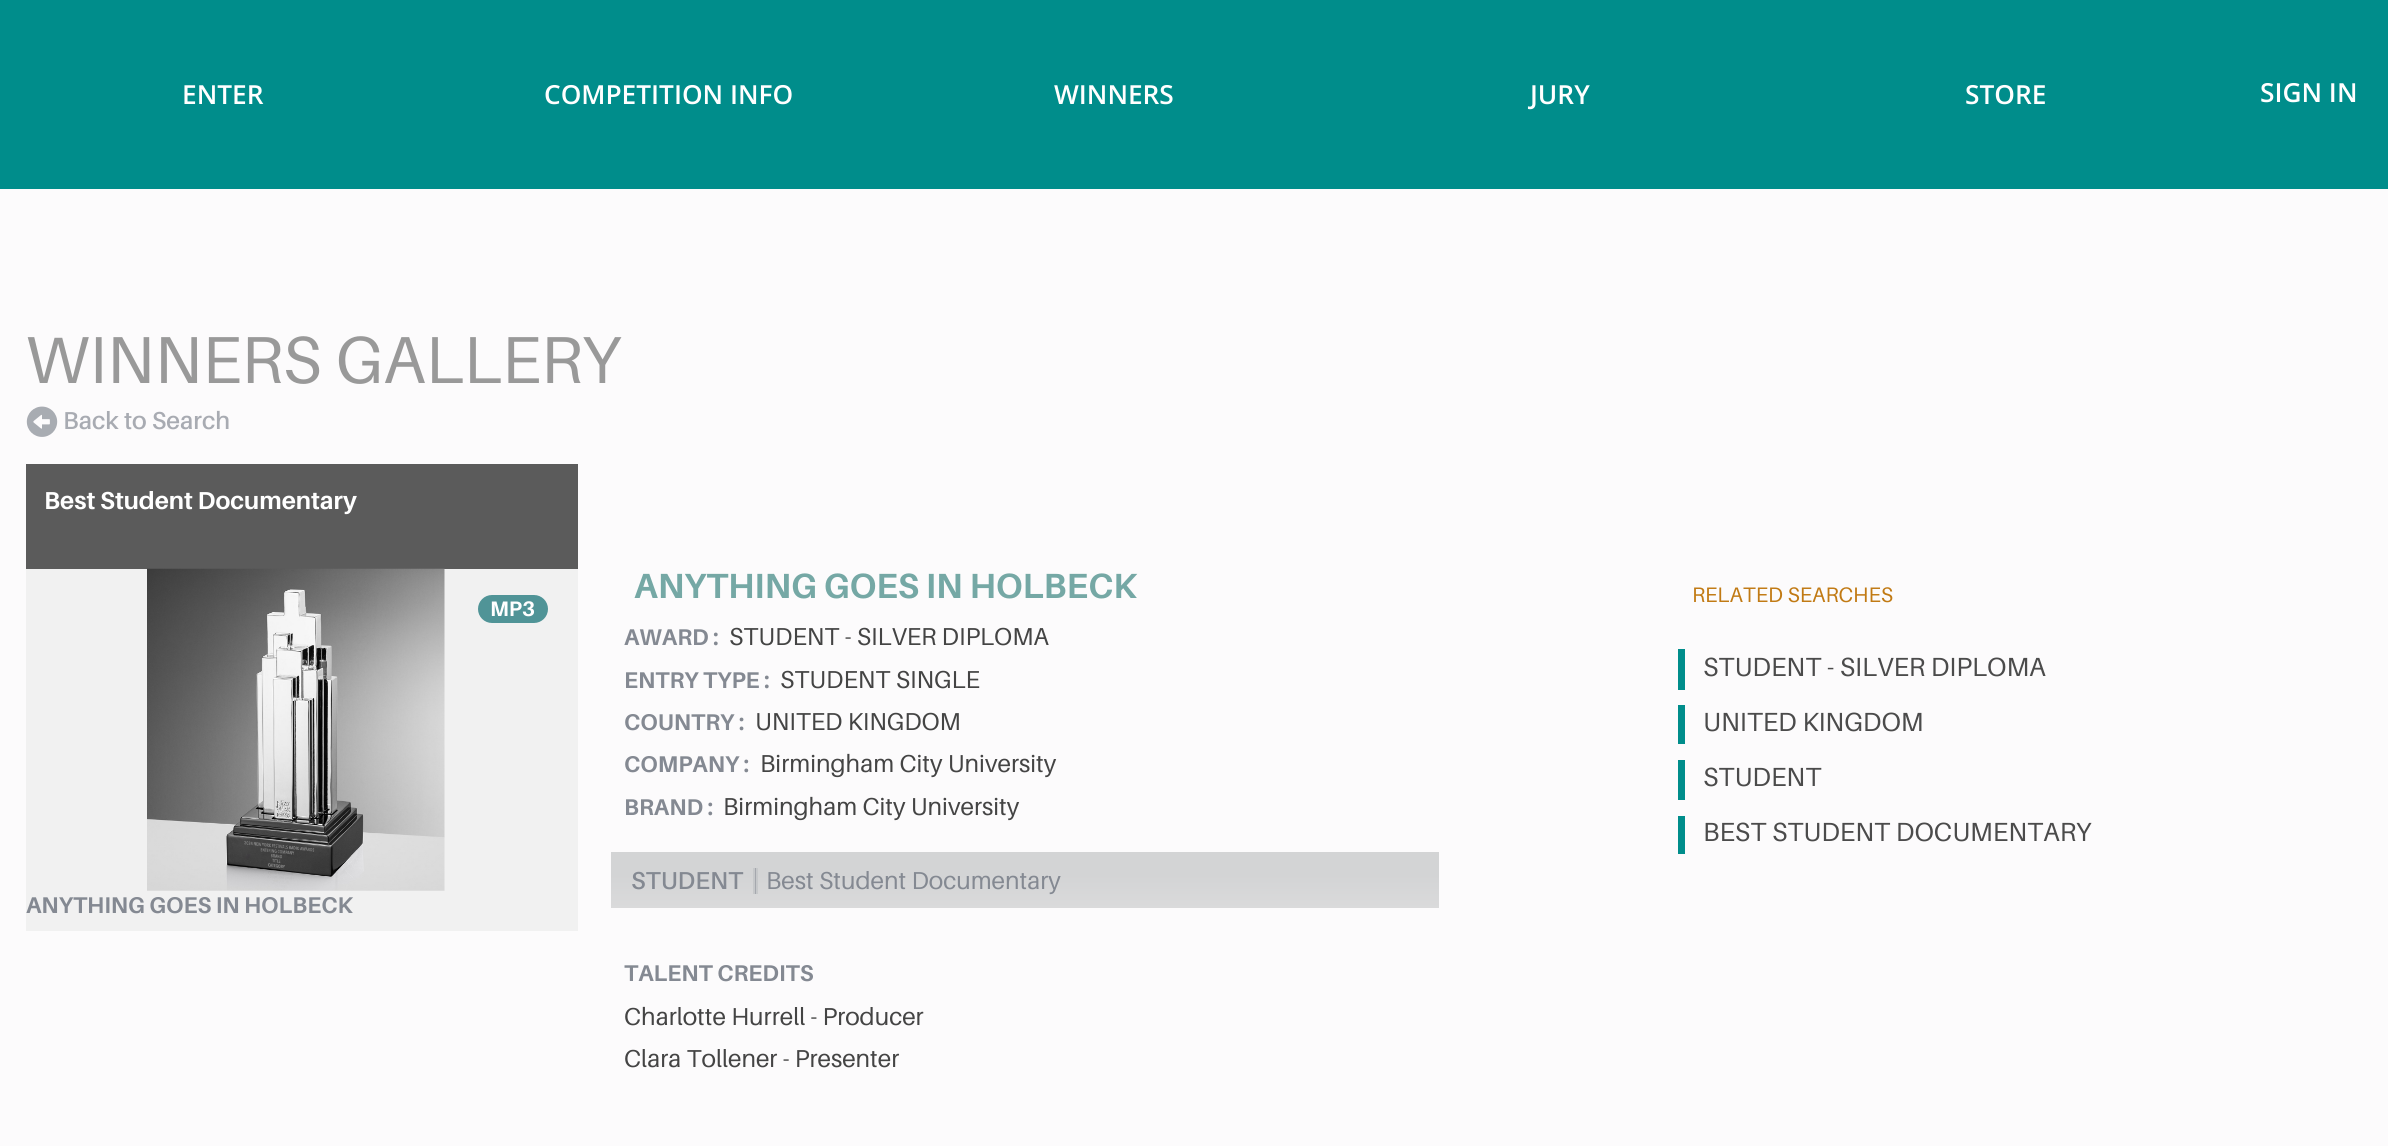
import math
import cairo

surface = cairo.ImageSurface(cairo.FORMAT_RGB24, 2388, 1146)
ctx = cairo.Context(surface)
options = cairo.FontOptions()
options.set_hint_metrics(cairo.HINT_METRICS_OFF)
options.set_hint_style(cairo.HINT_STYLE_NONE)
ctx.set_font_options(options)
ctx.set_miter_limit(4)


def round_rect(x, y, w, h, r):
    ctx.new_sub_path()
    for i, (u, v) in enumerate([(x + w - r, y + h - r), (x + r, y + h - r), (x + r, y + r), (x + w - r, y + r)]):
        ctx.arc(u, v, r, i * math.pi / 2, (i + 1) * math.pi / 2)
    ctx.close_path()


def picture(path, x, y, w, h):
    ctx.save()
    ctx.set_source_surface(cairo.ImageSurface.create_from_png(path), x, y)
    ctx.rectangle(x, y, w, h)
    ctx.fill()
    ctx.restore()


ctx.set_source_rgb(0.988, 0.984, 0.988)
ctx.paint()
ctx.set_source_rgb(0, 0.553, 0.545)
ctx.rectangle(0, 0, 2388, 189)
ctx.fill()
ctx.select_font_face("Open Sans SemiBold")
ctx.set_font_size(26.25)
ctx.set_source_rgb(1, 1, 1)
ctx.move_to(182, 104)
ctx.show_text("ENTER")
ctx.move_to(544, 104)
ctx.show_text("COMPETITION INFO")
ctx.move_to(1054, 104)
ctx.show_text("WINNERS")
ctx.move_to(1530, 104)
ctx.show_text("JURY")
ctx.move_to(1965, 104)
ctx.show_text("STORE")
ctx.move_to(2260, 102)
ctx.show_text("SIGN IN")
ctx.select_font_face("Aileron")
ctx.set_font_size(66.5)
ctx.set_source_rgb(0.6, 0.6, 0.6)
ctx.move_to(26, 383)
ctx.show_text("WINNERS GALLERY")
picture("img1.png", 26, 406, 32, 31)
ctx.select_font_face("Aileron SemiBold")
ctx.set_font_size(24.5)
ctx.set_source_rgb(0.659, 0.671, 0.698)
ctx.move_to(63, 429)
ctx.show_text("Back to Search")
ctx.set_source_rgb(0.357, 0.357, 0.357)
ctx.rectangle(26, 464, 552, 105)
ctx.fill()
ctx.select_font_face("Aileron", cairo.FONT_SLANT_NORMAL, cairo.FONT_WEIGHT_BOLD)
ctx.set_source_rgb(1, 1, 1)
ctx.move_to(44, 509)
ctx.show_text("Best Student Documentary")
ctx.set_source_rgb(0.945, 0.945, 0.945)
ctx.rectangle(26, 569, 552, 362)
ctx.fill()
picture("img2.png", 147, 568, 298, 323)
ctx.set_source_rgb(0.314, 0.58, 0.592)
round_rect(478, 595, 70, 28, 14)
ctx.fill()
ctx.set_font_size(21)
ctx.set_source_rgb(1, 1, 1)
ctx.move_to(490, 616)
ctx.show_text("MP3")
ctx.set_font_size(22.75)
ctx.set_source_rgb(0.518, 0.537, 0.573)
ctx.move_to(26, 913)
ctx.show_text("ANYTHING GOES IN HOLBECK")
ctx.set_font_size(35)
ctx.set_source_rgb(0.459, 0.659, 0.647)
ctx.move_to(634, 598)
ctx.show_text("ANYTHING GOES IN HOLBECK")
ctx.set_font_size(22.75)
ctx.set_source_rgb(0.518, 0.537, 0.573)
ctx.move_to(624, 645)
ctx.show_text("AWARD :")
ctx.select_font_face("Aileron")
ctx.set_font_size(24.5)
ctx.set_source_rgb(0.267, 0.267, 0.267)
ctx.move_to(729, 645)
ctx.show_text("STUDENT - SILVER DIPLOMA")
ctx.select_font_face("Aileron", cairo.FONT_SLANT_NORMAL, cairo.FONT_WEIGHT_BOLD)
ctx.set_font_size(22.75)
ctx.set_source_rgb(0.518, 0.537, 0.573)
ctx.move_to(624, 688)
ctx.show_text("ENTRY TYPE :")
ctx.select_font_face("Aileron")
ctx.set_font_size(24.5)
ctx.set_source_rgb(0.267, 0.267, 0.267)
ctx.move_to(780, 688)
ctx.show_text("STUDENT SINGLE")
ctx.select_font_face("Aileron", cairo.FONT_SLANT_NORMAL, cairo.FONT_WEIGHT_BOLD)
ctx.set_font_size(22.75)
ctx.set_source_rgb(0.518, 0.537, 0.573)
ctx.move_to(624, 730)
ctx.show_text("COUNTRY :")
ctx.select_font_face("Aileron")
ctx.set_font_size(24.5)
ctx.set_source_rgb(0.267, 0.267, 0.267)
ctx.move_to(755, 730)
ctx.show_text("UNITED KINGDOM")
ctx.select_font_face("Aileron", cairo.FONT_SLANT_NORMAL, cairo.FONT_WEIGHT_BOLD)
ctx.set_font_size(22.75)
ctx.set_source_rgb(0.518, 0.537, 0.573)
ctx.move_to(624, 772)
ctx.show_text("COMPANY :")
ctx.select_font_face("Aileron")
ctx.set_font_size(24.5)
ctx.set_source_rgb(0.267, 0.267, 0.267)
ctx.move_to(760, 772)
ctx.show_text("Birmingham City University")
ctx.select_font_face("Aileron", cairo.FONT_SLANT_NORMAL, cairo.FONT_WEIGHT_BOLD)
ctx.set_font_size(22.75)
ctx.set_source_rgb(0.518, 0.537, 0.573)
ctx.move_to(624, 815)
ctx.show_text("BRAND :")
ctx.select_font_face("Aileron")
ctx.set_font_size(24.5)
ctx.set_source_rgb(0.267, 0.267, 0.267)
ctx.move_to(723, 815)
ctx.show_text("Birmingham City University")
gradient = cairo.LinearGradient(1025, 852, 1025, 908)
gradient.add_color_stop_rgba(0, 0.827, 0.831, 0.835, 1)
gradient.add_color_stop_rgba(0.4, 0.827, 0.831, 0.835, 1)
gradient.add_color_stop_rgba(1, 0.855, 0.855, 0.859, 1)
ctx.set_source(gradient)
ctx.rectangle(611, 852, 828, 56)
ctx.fill()
gradient = cairo.LinearGradient(1025, 852, 1025, 908)
gradient.add_color_stop_rgba(0, 0.643, 0.655, 0.678, 1)
gradient.add_color_stop_rgba(0.4, 0.643, 0.655, 0.678, 1)
gradient.add_color_stop_rgba(1, 0.651, 0.663, 0.686, 1)
ctx.set_source(gradient)
ctx.rectangle(755, 868, 1, 26)
ctx.fill()
ctx.select_font_face("Aileron SemiBold")
ctx.set_source_rgb(0.518, 0.537, 0.573)
ctx.move_to(631, 889)
ctx.show_text("STUDENT")
ctx.set_source_rgb(0.776, 0.784, 0.792)
ctx.rectangle(756, 868, 2, 26)
ctx.fill()
ctx.rectangle(753, 868, 2, 26)
ctx.fill()
ctx.select_font_face("Aileron")
ctx.set_source_rgb(0.518, 0.537, 0.573)
ctx.move_to(766, 889)
ctx.show_text("Best Student Documentary")
ctx.select_font_face("Aileron", cairo.FONT_SLANT_NORMAL, cairo.FONT_WEIGHT_BOLD)
ctx.set_font_size(22.75)
ctx.move_to(624, 981)
ctx.show_text("TALENT CREDITS")
ctx.select_font_face("Aileron")
ctx.set_font_size(24.5)
ctx.set_source_rgb(0.267, 0.267, 0.267)
ctx.move_to(624, 1025)
ctx.show_text("Charlotte Hurrell - Producer")
ctx.move_to(624, 1067)
ctx.show_text("Clara Tollener - Presenter")
ctx.set_font_size(21)
ctx.set_source_rgb(0.757, 0.478, 0.082)
ctx.move_to(1692, 602)
ctx.show_text("RELATED SEARCHES")
ctx.set_source_rgb(0, 0.553, 0.545)
ctx.rectangle(1678, 649, 7, 41)
ctx.fill()
ctx.set_font_size(26.25)
ctx.set_source_rgb(0.294, 0.294, 0.294)
ctx.move_to(1703, 676)
ctx.show_text("STUDENT - SILVER DIPLOMA")
ctx.set_source_rgb(0, 0.553, 0.545)
ctx.rectangle(1678, 705, 7, 39)
ctx.fill()
ctx.set_source_rgb(0.294, 0.294, 0.294)
ctx.move_to(1703, 731)
ctx.show_text("UNITED KINGDOM")
ctx.set_source_rgb(0, 0.553, 0.545)
ctx.rectangle(1678, 760, 7, 40)
ctx.fill()
ctx.set_source_rgb(0.294, 0.294, 0.294)
ctx.move_to(1703, 786)
ctx.show_text("STUDENT")
ctx.set_source_rgb(0, 0.553, 0.545)
ctx.rectangle(1678, 816, 7, 38)
ctx.fill()
ctx.set_source_rgb(0.294, 0.294, 0.294)
ctx.move_to(1703, 841)
ctx.show_text("BEST STUDENT DOCUMENTARY")
surface.write_to_png("page.png")
